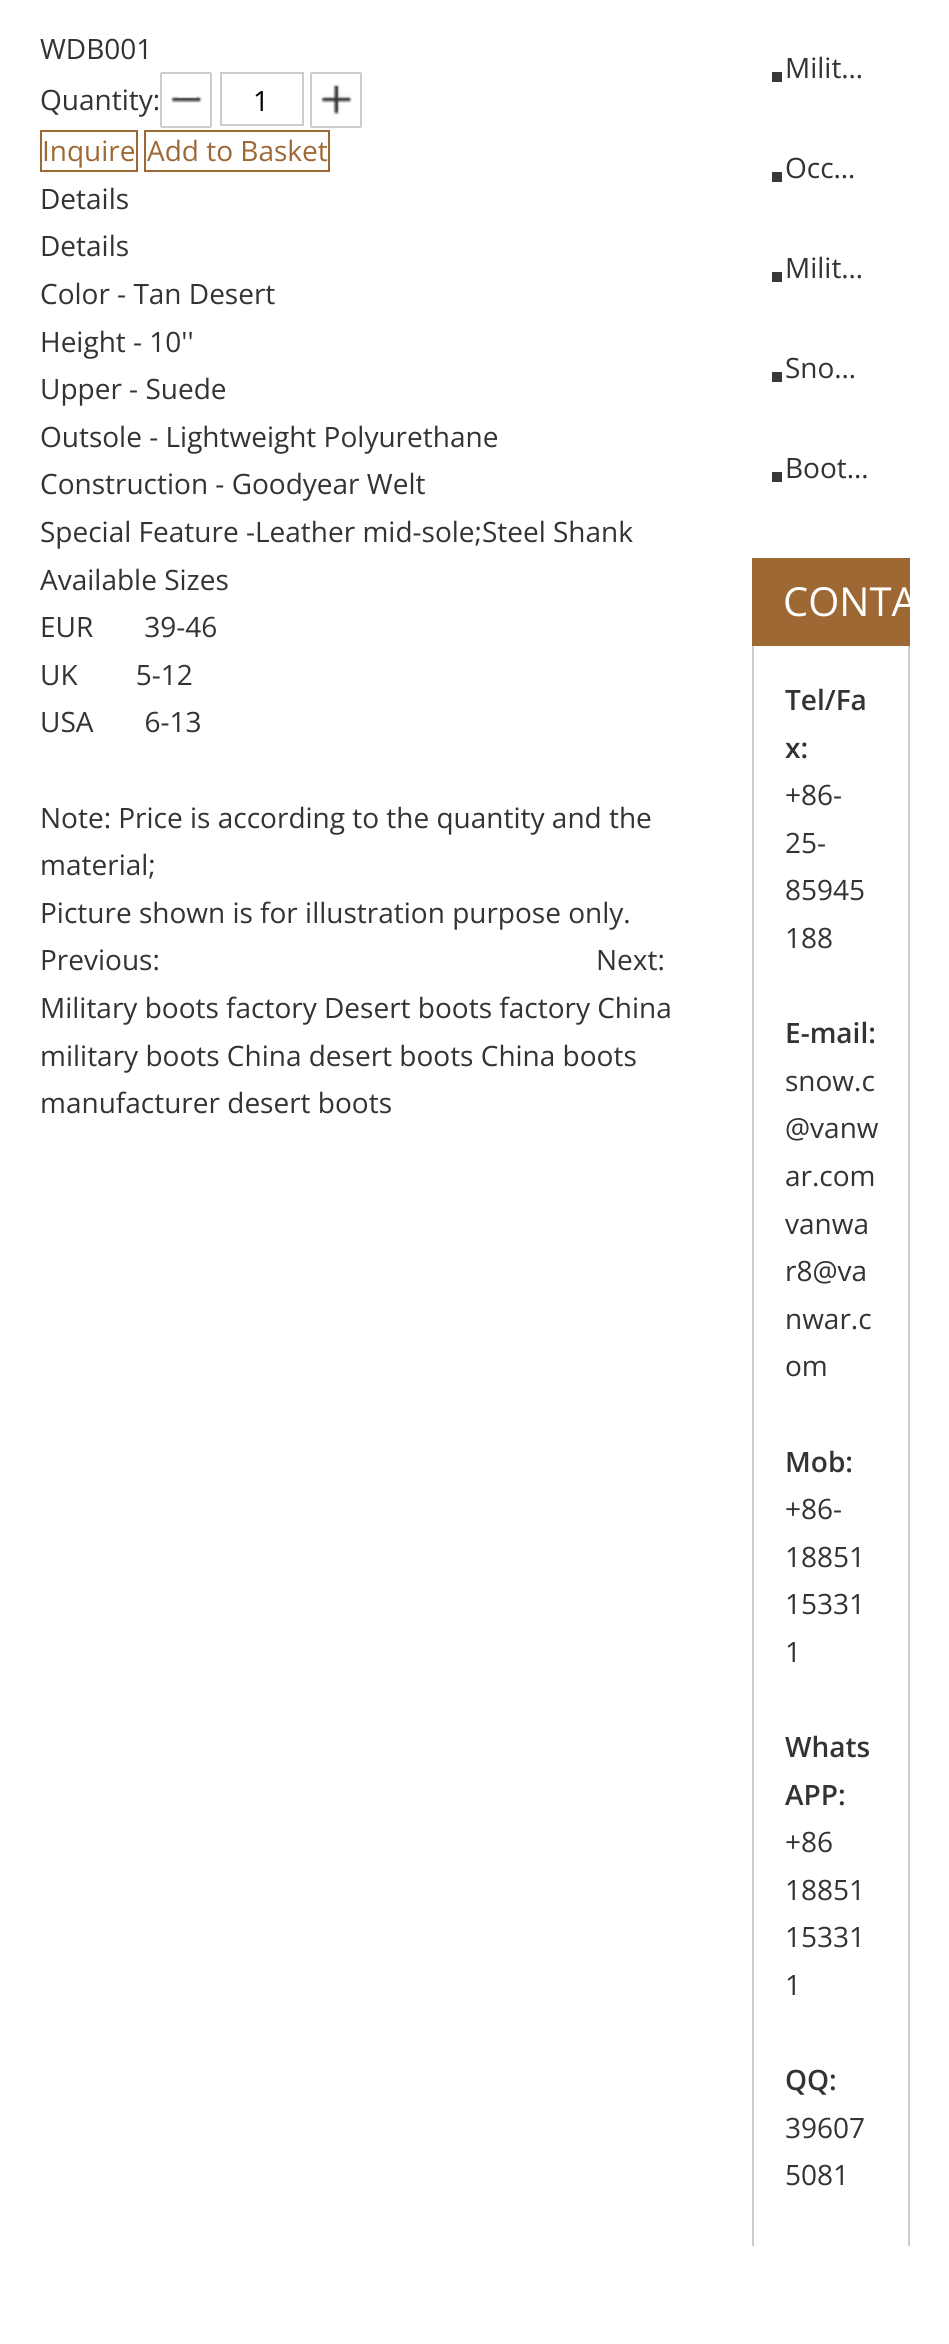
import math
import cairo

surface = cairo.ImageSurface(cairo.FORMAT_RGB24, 949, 2344)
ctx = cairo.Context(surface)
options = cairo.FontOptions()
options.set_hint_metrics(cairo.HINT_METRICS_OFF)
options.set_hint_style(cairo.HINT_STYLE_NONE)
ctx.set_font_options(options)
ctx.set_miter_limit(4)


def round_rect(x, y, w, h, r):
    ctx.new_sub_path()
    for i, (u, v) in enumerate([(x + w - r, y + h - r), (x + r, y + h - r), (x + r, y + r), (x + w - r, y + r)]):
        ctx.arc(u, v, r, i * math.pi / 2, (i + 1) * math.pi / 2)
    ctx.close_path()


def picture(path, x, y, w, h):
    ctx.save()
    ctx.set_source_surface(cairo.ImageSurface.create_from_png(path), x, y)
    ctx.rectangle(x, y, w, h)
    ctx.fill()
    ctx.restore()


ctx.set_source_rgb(1, 1, 1)
ctx.paint()
ctx.select_font_face("Open Sans")
ctx.set_font_size(28)
ctx.set_source_rgb(0.2, 0.2, 0.2)
ctx.move_to(40, 59)
ctx.show_text("WDB001")
ctx.move_to(40, 110)
ctx.show_text("Quantity:")
picture("img1.png", 171, 95, 31, 8)
round_rect(161, 73, 50, 54, 1)
ctx.set_source_rgb(0.8, 0.8, 0.8)
ctx.stroke()
ctx.rectangle(221, 73, 82, 52)
ctx.stroke()
ctx.set_source_rgb(0, 0, 0)
ctx.move_to(253, 111)
ctx.show_text("1")
picture("img2.png", 321, 84, 31, 31)
round_rect(311, 73, 50, 54, 1)
ctx.set_source_rgb(0.8, 0.8, 0.8)
ctx.stroke()
ctx.rectangle(41, 131, 96, 40)
ctx.set_source_rgb(0.62, 0.408, 0.208)
ctx.stroke()
ctx.move_to(42, 161)
ctx.show_text("Inquire")
ctx.rectangle(145, 131, 184, 40)
ctx.stroke()
ctx.move_to(147, 161)
ctx.show_text("Add to Basket")
ctx.set_source_rgb(0.2, 0.2, 0.2)
ctx.move_to(40, 209)
ctx.show_text("Details")
ctx.move_to(40, 256)
ctx.show_text("Details")
ctx.move_to(40, 304)
ctx.show_text("Color - Tan Desert")
ctx.move_to(40, 352)
ctx.show_text("Height - 10''")
ctx.move_to(40, 399)
ctx.show_text("Upper - Suede")
ctx.move_to(40, 447)
ctx.show_text("Outsole - Lightweight Polyurethane")
ctx.move_to(40, 494)
ctx.show_text("Construction - Goodyear Welt")
ctx.move_to(40, 542)
ctx.show_text("Special Feature -Leather mid-sole;Steel Shank")
ctx.move_to(40, 590)
ctx.show_text("Available Sizes")
ctx.move_to(40, 637)
ctx.show_text("EUR       39-46")
ctx.move_to(40, 685)
ctx.show_text("UK        5-12")
ctx.move_to(40, 732)
ctx.show_text("USA       6-13")
ctx.move_to(40, 828)
ctx.show_text("Note: Price is according to the quantity and the")
ctx.move_to(40, 875)
ctx.show_text("material;")
ctx.move_to(40, 923)
ctx.show_text("Picture shown is for illustration purpose only.")
ctx.move_to(40, 970)
ctx.show_text("Previous:")
ctx.move_to(596, 970)
ctx.show_text("Next:")
ctx.move_to(40, 1018)
ctx.show_text("Military boots factory Desert boots factory China")
ctx.move_to(40, 1066)
ctx.show_text("military boots China desert boots China boots")
ctx.move_to(40, 1113)
ctx.show_text("manufacturer desert boots")
ctx.set_source_rgb(0.22, 0.22, 0.22)
ctx.rectangle(772, 72, 10, 10)
ctx.fill()
ctx.set_source_rgb(0.2, 0.2, 0.2)
ctx.move_to(785, 78)
ctx.show_text("Milit…")
ctx.set_source_rgb(0.22, 0.22, 0.22)
ctx.rectangle(772, 172, 10, 10)
ctx.fill()
ctx.set_source_rgb(0.2, 0.2, 0.2)
ctx.move_to(785, 178)
ctx.show_text("Occ…")
ctx.set_source_rgb(0.22, 0.22, 0.22)
ctx.rectangle(772, 272, 10, 10)
ctx.fill()
ctx.set_source_rgb(0.2, 0.2, 0.2)
ctx.move_to(785, 278)
ctx.show_text("Milit…")
ctx.set_source_rgb(0.22, 0.22, 0.22)
ctx.rectangle(772, 372, 10, 10)
ctx.fill()
ctx.set_source_rgb(0.2, 0.2, 0.2)
ctx.move_to(785, 378)
ctx.show_text("Sno…")
ctx.set_source_rgb(0.22, 0.22, 0.22)
ctx.rectangle(772, 472, 10, 10)
ctx.fill()
ctx.set_source_rgb(0.2, 0.2, 0.2)
ctx.move_to(785, 478)
ctx.show_text("Boot…")
ctx.set_source_rgb(0.62, 0.408, 0.208)
ctx.rectangle(752, 558, 158, 88)
ctx.fill()
ctx.set_font_size(40)
ctx.set_source_rgb(1, 1, 1)
ctx.move_to(783, 616)
ctx.show_text("CONTA")
ctx.save()
ctx.rectangle(0, 0, 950, 2246)
ctx.clip()
ctx.set_source_rgb(0.804, 0.804, 0.804)
ctx.new_path()
ctx.move_to(910, 646)
ctx.line_to(910, 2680)
ctx.line_to(908, 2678)
ctx.line_to(908, 646)
ctx.close_path()
ctx.fill()
ctx.new_path()
ctx.move_to(752, 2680)
ctx.line_to(752, 646)
ctx.line_to(754, 646)
ctx.line_to(754, 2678)
ctx.close_path()
ctx.fill()
ctx.restore()
ctx.select_font_face("Open Sans SemiBold")
ctx.set_font_size(28)
ctx.set_source_rgb(0.2, 0.2, 0.2)
ctx.move_to(785, 710)
ctx.show_text("Tel/Fa")
ctx.move_to(785, 758)
ctx.show_text("x:")
ctx.select_font_face("Open Sans")
ctx.move_to(785, 805)
ctx.show_text("+86-")
ctx.move_to(785, 853)
ctx.show_text("25-")
ctx.move_to(785, 900)
ctx.show_text("85945")
ctx.move_to(785, 948)
ctx.show_text("188")
ctx.select_font_face("Open Sans SemiBold")
ctx.move_to(785, 1043)
ctx.show_text("E-mail:")
ctx.select_font_face("Open Sans")
ctx.move_to(785, 1091)
ctx.show_text("snow.c")
ctx.move_to(785, 1138)
ctx.show_text("@vanw")
ctx.move_to(785, 1186)
ctx.show_text("ar.com")
ctx.move_to(785, 1234)
ctx.show_text("vanwa")
ctx.move_to(785, 1281)
ctx.show_text("r8@va")
ctx.move_to(785, 1329)
ctx.show_text("nwar.c")
ctx.move_to(785, 1376)
ctx.show_text("om")
ctx.select_font_face("Open Sans SemiBold")
ctx.move_to(785, 1472)
ctx.show_text("Mob:")
ctx.select_font_face("Open Sans")
ctx.move_to(785, 1519)
ctx.show_text("+86-")
ctx.move_to(785, 1567)
ctx.show_text("18851")
ctx.move_to(785, 1614)
ctx.show_text("15331")
ctx.move_to(785, 1662)
ctx.show_text("1")
ctx.select_font_face("Open Sans SemiBold")
ctx.move_to(785, 1757)
ctx.show_text("Whats")
ctx.move_to(785, 1805)
ctx.show_text("APP:")
ctx.select_font_face("Open Sans")
ctx.move_to(785, 1852)
ctx.show_text("+86")
ctx.move_to(785, 1900)
ctx.show_text("18851")
ctx.move_to(785, 1947)
ctx.show_text("15331")
ctx.move_to(785, 1995)
ctx.show_text("1")
ctx.select_font_face("Open Sans SemiBold")
ctx.move_to(785, 2090)
ctx.show_text("QQ:")
ctx.select_font_face("Open Sans")
ctx.move_to(785, 2138)
ctx.show_text("39607")
ctx.move_to(785, 2185)
ctx.show_text("5081")
surface.write_to_png("page.png")
